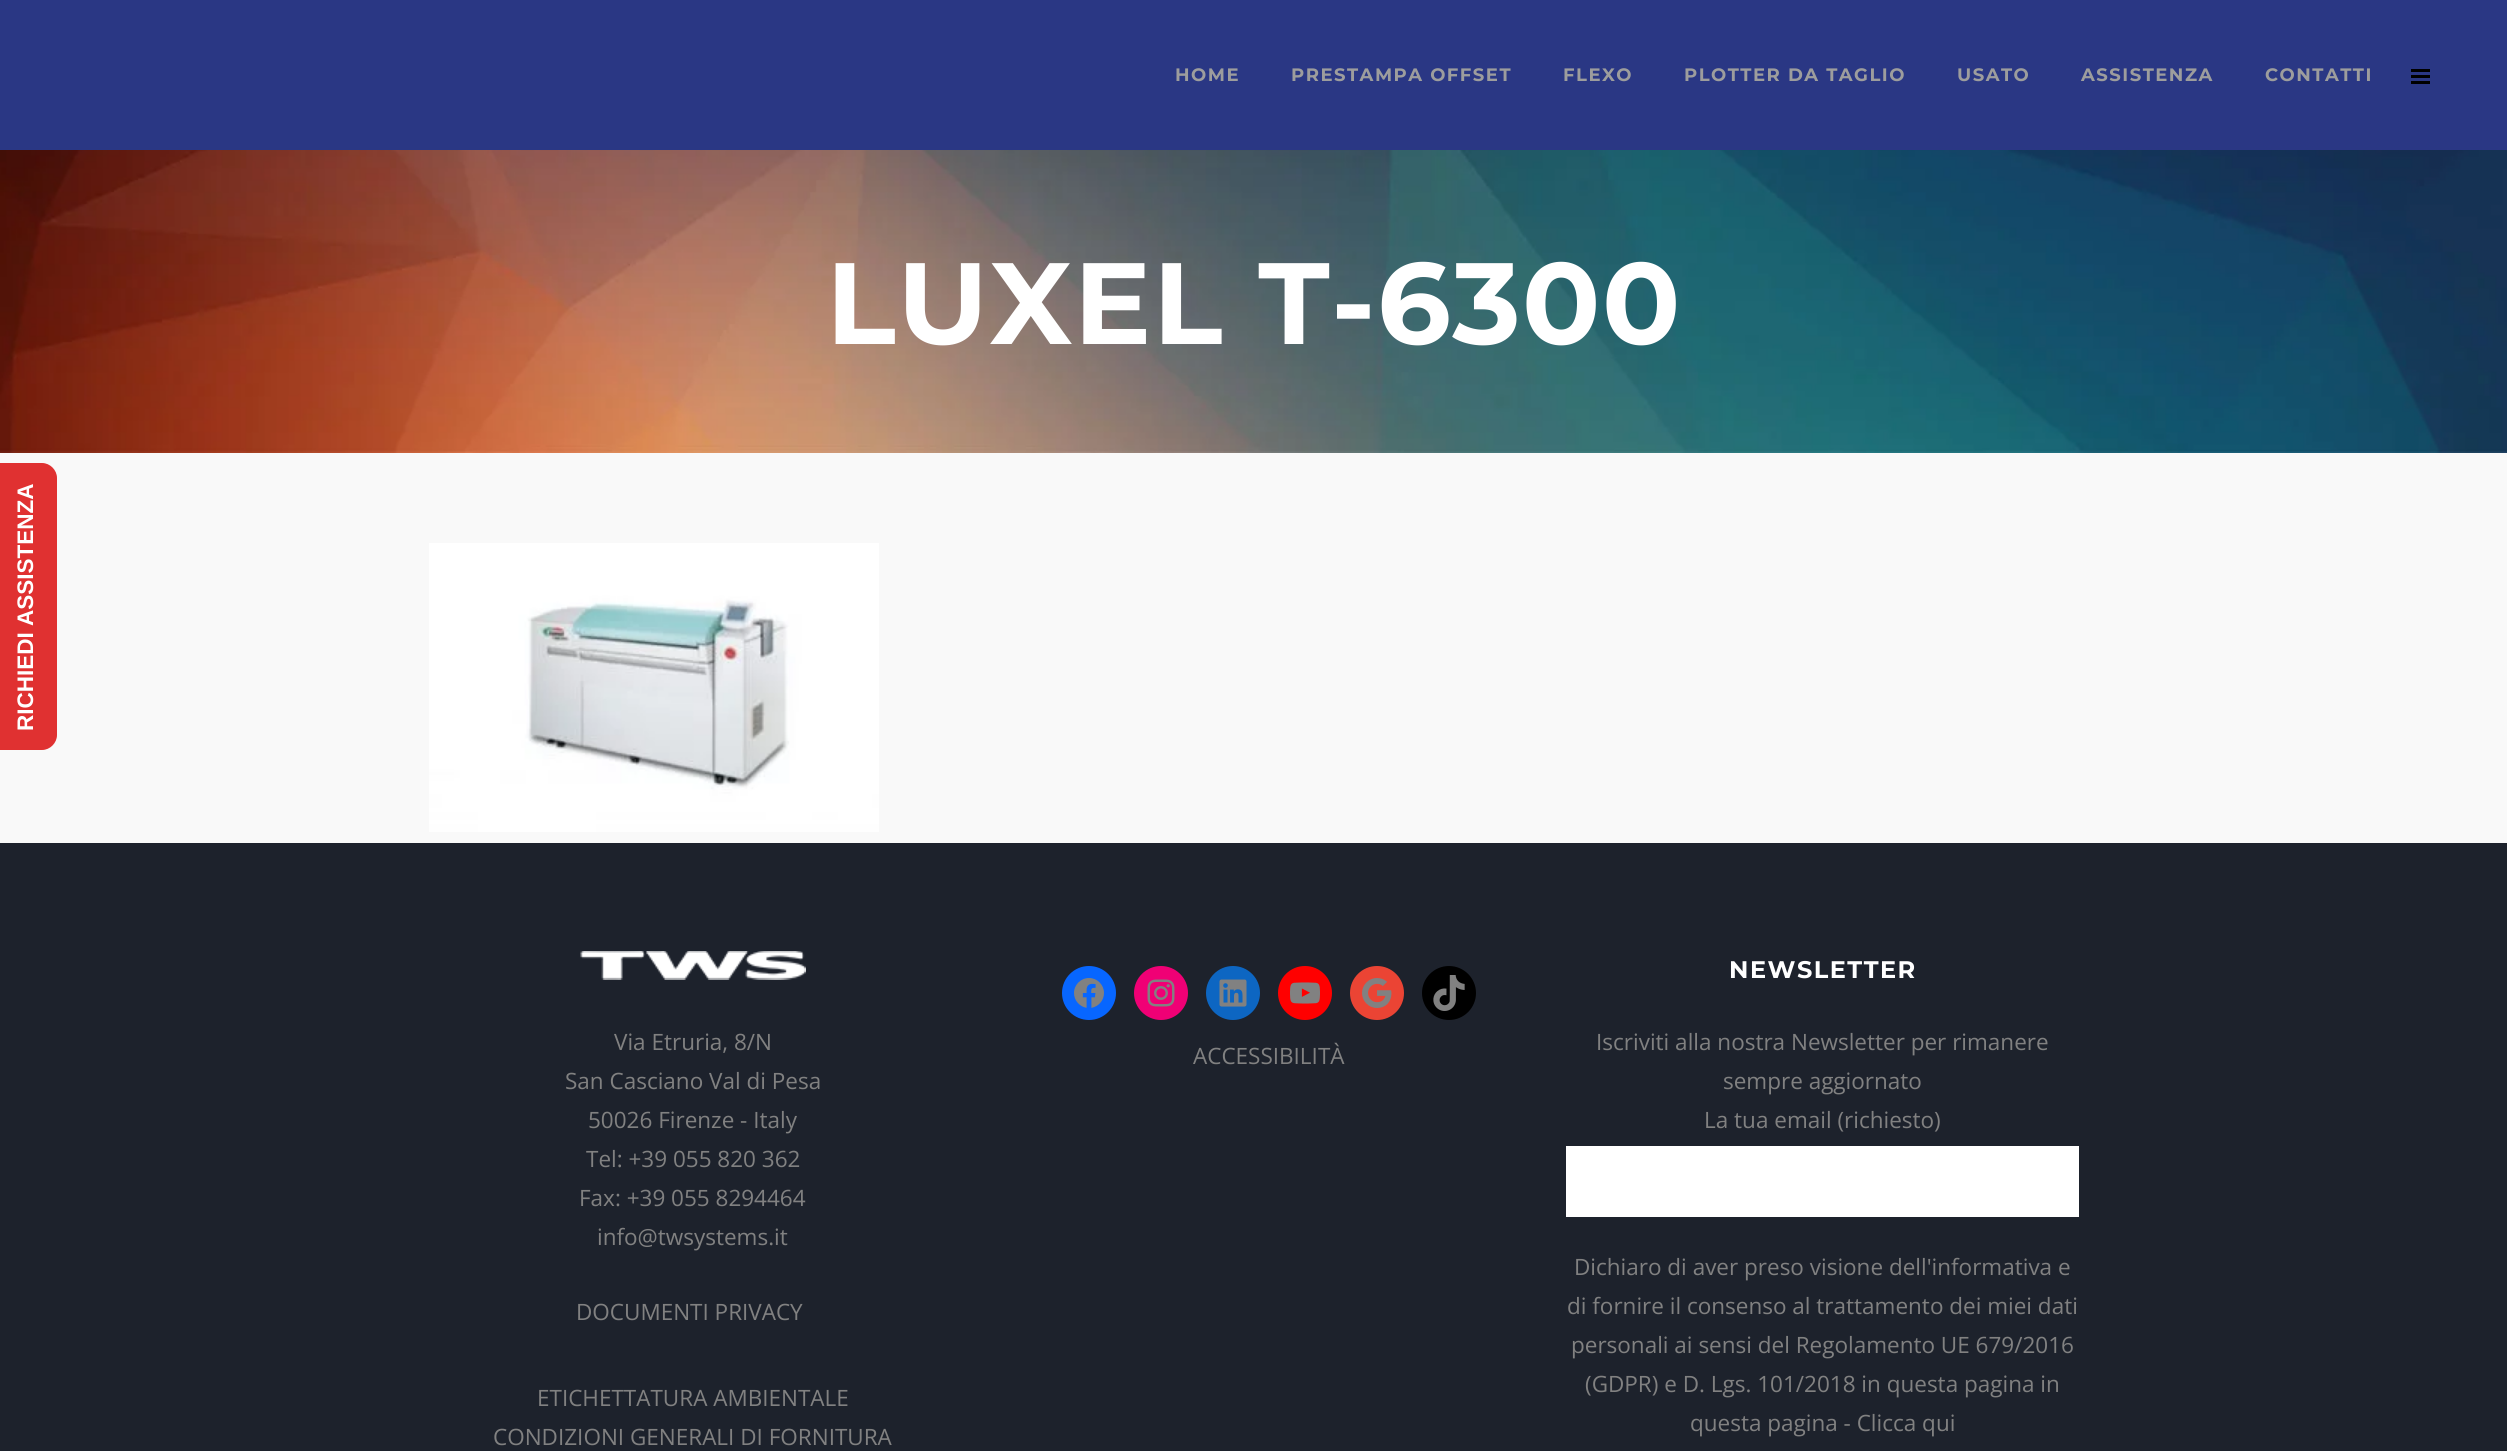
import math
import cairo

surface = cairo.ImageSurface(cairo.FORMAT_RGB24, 2507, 1451)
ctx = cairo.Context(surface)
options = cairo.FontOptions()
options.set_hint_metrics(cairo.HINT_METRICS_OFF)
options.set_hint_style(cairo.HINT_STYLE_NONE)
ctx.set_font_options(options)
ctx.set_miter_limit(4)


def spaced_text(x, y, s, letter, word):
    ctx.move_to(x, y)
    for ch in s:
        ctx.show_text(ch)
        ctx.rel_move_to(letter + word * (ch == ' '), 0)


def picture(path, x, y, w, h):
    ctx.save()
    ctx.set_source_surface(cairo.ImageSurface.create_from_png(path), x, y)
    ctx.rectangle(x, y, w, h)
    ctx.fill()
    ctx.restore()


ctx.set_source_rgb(0.973, 0.973, 0.973)
ctx.paint()
ctx.set_source_rgb(0.878, 0.192, 0.192)
ctx.new_path()
ctx.move_to(-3, 750)
ctx.line_to(-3, 463)
ctx.line_to(42, 463)
ctx.curve_to(50, 463, 57, 470, 57, 478)
ctx.line_to(57, 735)
ctx.curve_to(57, 743, 50, 750, 42, 750)
ctx.close_path()
ctx.fill()
ctx.select_font_face("Liberation Sans", cairo.FONT_SLANT_NORMAL, cairo.FONT_WEIGHT_BOLD)
ctx.set_font_size(22.5)
ctx.set_source_rgb(1, 1, 1)
ctx.save()
ctx.translate(33, 731)
ctx.rotate(-90 * math.pi / 180)
ctx.move_to(0, 0)
ctx.show_text("RICHIEDI ASSISTENZA")
ctx.restore()
ctx.set_source_rgb(0.165, 0.216, 0.518)
ctx.rectangle(0, 0, 2507, 150)
ctx.fill()
ctx.select_font_face("Montserrat", cairo.FONT_SLANT_NORMAL, cairo.FONT_WEIGHT_BOLD)
ctx.set_font_size(18)
ctx.set_source_rgb(0.616, 0.616, 0.616)
spaced_text(1175, 81, "HOME", 1.5, 0)
spaced_text(1291, 81, "PRESTAMPA OFFSET", 1.5, 0)
spaced_text(1563, 81, "FLEXO", 1.5, 0)
spaced_text(1684, 81, "PLOTTER DA TAGLIO", 1.5, 0)
spaced_text(1957, 81, "USATO", 1.5, 0)
spaced_text(2081, 81, "ASSISTENZA", 1.5, 0)
spaced_text(2265, 81, "CONTATTI", 1.5, 0)
ctx.set_source_rgb(0, 0, 0)
ctx.rectangle(2411, 75, 19, 3)
ctx.fill()
ctx.rectangle(2411, 69, 19, 3)
ctx.fill()
ctx.rectangle(2411, 81, 19, 3)
ctx.fill()
picture("img1.png", 0, 150, 2507, 303)
ctx.set_font_size(115.5)
ctx.set_source_rgb(1, 1, 1)
spaced_text(826, 344, "LUXEL T-6300", 1.5, 0)
picture("img2.png", 429, 543, 450, 289)
ctx.set_source_rgb(0.114, 0.133, 0.173)
ctx.rectangle(0, 843, 2507, 608)
ctx.fill()
picture("img3.png", 580, 951, 226, 29)
ctx.select_font_face("Open Sans")
ctx.set_font_size(22.5)
ctx.set_source_rgb(0.506, 0.506, 0.506)
ctx.move_to(614, 1050)
ctx.show_text("Via Etruria, 8/N")
ctx.move_to(565, 1089)
ctx.show_text("San Casciano Val di Pesa")
ctx.move_to(588, 1128)
ctx.show_text("50026 Firenze - Italy")
ctx.move_to(586, 1167)
ctx.show_text("Tel: +39 055 820 362")
ctx.move_to(579, 1206)
ctx.show_text("Fax: +39 055 8294464")
ctx.move_to(597, 1245)
ctx.show_text("info@twsystems.it")
ctx.move_to(576, 1320)
ctx.show_text("DOCUMENTI PRIVACY")
ctx.move_to(537, 1406)
ctx.show_text("ETICHETTATURA AMBIENTALE")
ctx.move_to(493, 1445)
ctx.show_text("CONDIZIONI GENERALI DI FORNITURA")
ctx.set_source_rgb(0.031, 0.4, 1)
ctx.new_path()
ctx.arc(1089, 993, 27, 0, 2 * math.pi)
ctx.fill()
picture("img4.png", 1074, 978, 30, 30)
ctx.set_source_rgb(0.941, 0, 0.459)
ctx.arc(1161, 993, 27, 0, 2 * math.pi)
ctx.fill()
picture("img5.png", 1147, 979, 28, 28)
ctx.set_source_rgb(0.051, 0.4, 0.761)
ctx.arc(1233, 993, 27, 0, 2 * math.pi)
ctx.fill()
picture("img6.png", 1219, 979, 28, 28)
ctx.set_source_rgb(1, 0, 0)
ctx.arc(1305, 993, 27, 0, 2 * math.pi)
ctx.fill()
picture("img7.png", 1290, 982, 30, 22)
ctx.set_source_rgb(0.918, 0.267, 0.204)
ctx.arc(1377, 993, 27, 0, 2 * math.pi)
ctx.fill()
picture("img8.png", 1362, 978, 30, 30)
ctx.set_source_rgb(0, 0, 0)
ctx.arc(1449, 993, 27, 0, 2 * math.pi)
ctx.fill()
picture("img9.png", 1433, 975, 32, 36)
ctx.set_source_rgb(0.506, 0.506, 0.506)
ctx.move_to(1193, 1064)
ctx.show_text("ACCESSIBILITÀ")
ctx.select_font_face("Montserrat", cairo.FONT_SLANT_NORMAL, cairo.FONT_WEIGHT_BOLD)
ctx.set_font_size(24)
ctx.set_source_rgb(1, 1, 1)
spaced_text(1729, 978, "NEWSLETTER", 1.5, 0)
ctx.select_font_face("Open Sans")
ctx.set_font_size(22.5)
ctx.set_source_rgb(0.506, 0.506, 0.506)
ctx.move_to(1596, 1050)
ctx.show_text("Iscriviti alla nostra Newsletter per rimanere")
ctx.move_to(1723, 1089)
ctx.show_text("sempre aggiornato")
ctx.move_to(1704, 1128)
ctx.show_text("La tua email (richiesto)")
ctx.set_source_rgb(1, 1, 1)
ctx.rectangle(1566, 1146, 513, 71)
ctx.fill()
ctx.set_source_rgb(0.506, 0.506, 0.506)
ctx.move_to(1574, 1275)
ctx.show_text("Dichiaro di aver preso visione dell'informativa e")
ctx.move_to(1567, 1314)
ctx.show_text("di fornire il consenso al trattamento dei miei dati")
ctx.move_to(1571, 1353)
ctx.show_text("personali ai sensi del Regolamento UE 679/2016")
ctx.move_to(1585, 1392)
ctx.show_text("(GDPR) e D. Lgs. 101/2018 in questa pagina in")
ctx.move_to(1690, 1431)
ctx.show_text("questa pagina - Clicca qui")
surface.write_to_png("page.png")
